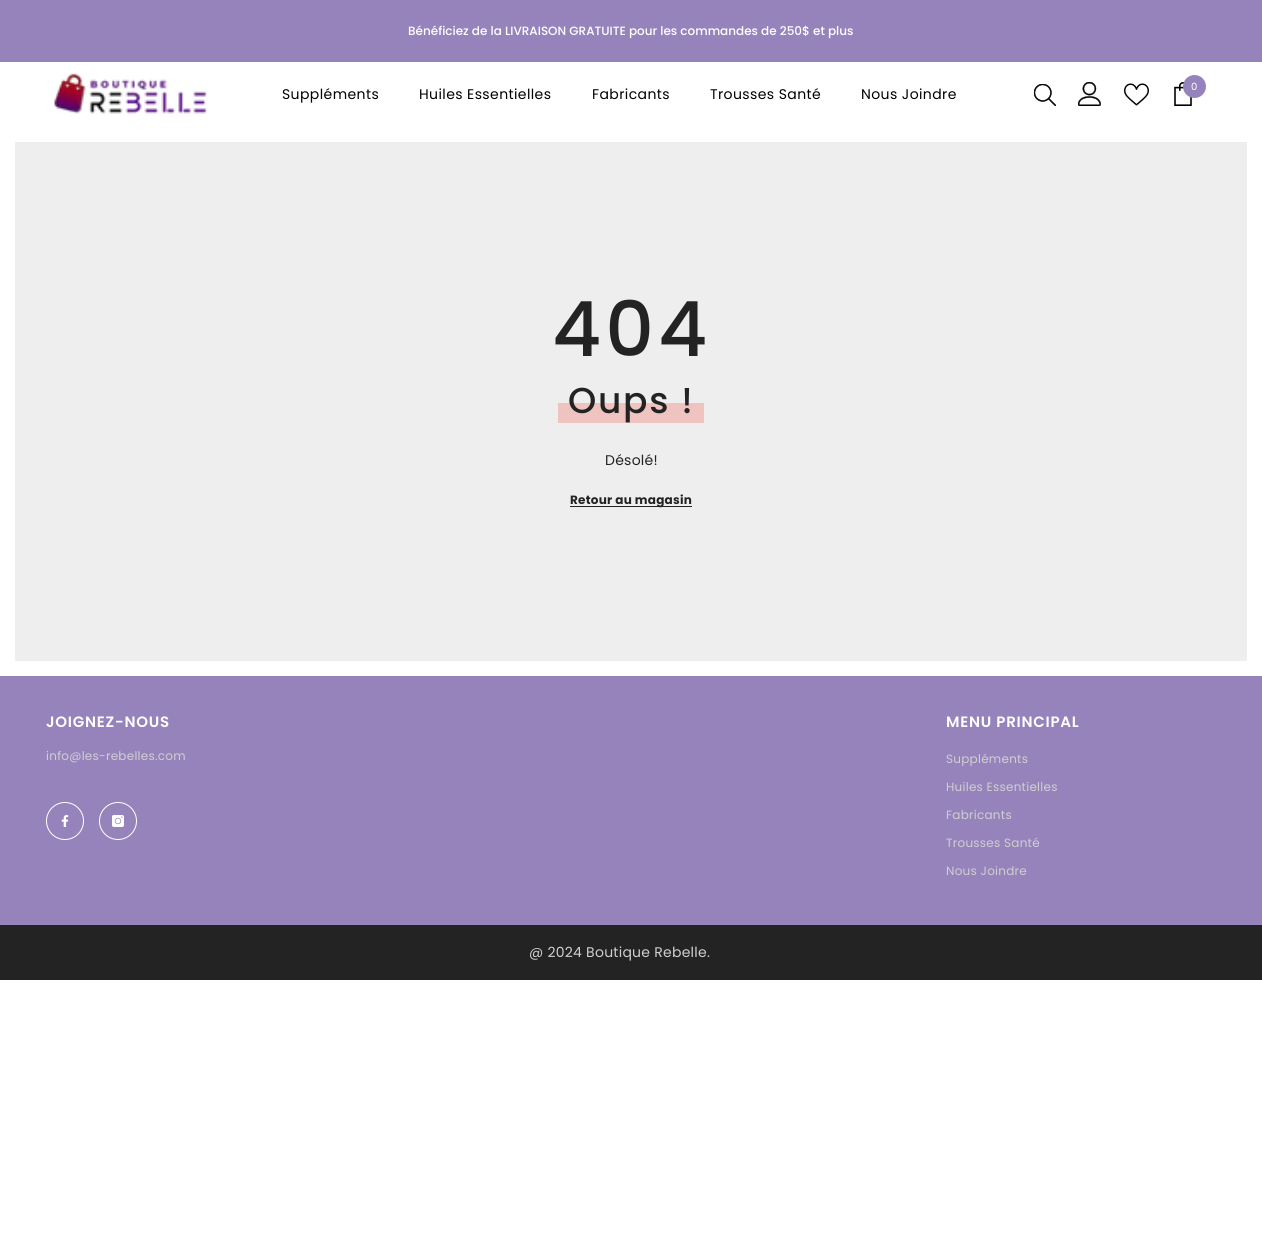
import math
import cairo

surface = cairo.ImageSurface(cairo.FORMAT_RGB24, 1262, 1260)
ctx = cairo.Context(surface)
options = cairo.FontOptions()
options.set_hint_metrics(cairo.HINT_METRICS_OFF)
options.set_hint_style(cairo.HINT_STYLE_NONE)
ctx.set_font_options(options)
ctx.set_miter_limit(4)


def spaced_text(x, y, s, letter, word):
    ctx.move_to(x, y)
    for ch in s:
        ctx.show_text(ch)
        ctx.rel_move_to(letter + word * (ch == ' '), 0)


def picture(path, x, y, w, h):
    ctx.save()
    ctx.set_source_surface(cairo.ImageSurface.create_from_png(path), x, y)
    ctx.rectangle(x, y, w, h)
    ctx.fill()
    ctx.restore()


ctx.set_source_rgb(1, 1, 1)
ctx.paint()
ctx.set_source_rgb(0.592, 0.514, 0.737)
ctx.rectangle(0, 0, 1262, 62)
ctx.fill()
ctx.select_font_face("Poppins Medium")
ctx.set_font_size(12)
ctx.set_source_rgb(1, 1, 1)
ctx.move_to(408, 35)
ctx.show_text("Bénéficiez de la LIVRAISON GRATUITE pour les commandes de 250$ et plus")
picture("img1.png", 54, 73, 153, 41)
picture("img2.png", 1034, 84, 22, 22)
picture("img3.png", 1078, 82, 23, 24)
picture("img4.png", 1124, 83, 25, 23)
picture("img5.png", 1174, 82, 18, 24)
ctx.set_source_rgb(0.592, 0.514, 0.737)
ctx.arc(1194.5, 86.5, 11.5, 0, 2 * math.pi)
ctx.fill()
ctx.select_font_face("Poppins")
ctx.set_font_size(10)
ctx.set_source_rgb(1, 1, 1)
ctx.move_to(1191, 90)
ctx.show_text("0")
ctx.set_font_size(14)
ctx.set_source_rgb(0, 0, 0)
spaced_text(282, 99, "Suppléments", 0.4, 0)
spaced_text(419, 99, "Huiles Essentielles", 0.4, 0)
spaced_text(592, 99, "Fabricants", 0.4, 0)
spaced_text(710, 99, "Trousses Santé", 0.4, 0)
spaced_text(861, 99, "Nous Joindre", 0.4, 0)
ctx.set_source_rgb(0.933, 0.933, 0.933)
ctx.rectangle(15, 142, 1232, 519)
ctx.fill()
ctx.select_font_face("Poppins Medium")
ctx.set_font_size(76)
ctx.set_source_rgb(0.137, 0.137, 0.137)
spaced_text(552, 356, "404", 4, 0)
ctx.set_source_rgb(0.937, 0.765, 0.753)
ctx.rectangle(558, 403, 146, 20)
ctx.fill()
ctx.set_font_size(36)
ctx.set_source_rgb(0.137, 0.137, 0.137)
spaced_text(568, 413, "Oups !", 1.75, 0)
ctx.select_font_face("Poppins")
ctx.set_font_size(14)
spaced_text(605, 465, "Désolé!", 0.25, 0)
ctx.rectangle(570, 506, 122, 1)
ctx.fill()
ctx.select_font_face("Poppins", cairo.FONT_SLANT_NORMAL, cairo.FONT_WEIGHT_BOLD)
ctx.set_font_size(12)
spaced_text(570, 504, "Retour au magasin", 0.25, 0)
ctx.set_source_rgb(0.592, 0.514, 0.737)
ctx.rectangle(0, 676, 1262, 249)
ctx.fill()
ctx.select_font_face("Poppins SemiBold")
ctx.set_font_size(15)
ctx.set_source_rgb(1, 1, 1)
spaced_text(46, 727, "JOIGNEZ-NOUS", 0.75, 0)
ctx.select_font_face("Poppins")
ctx.set_font_size(12)
ctx.set_source_rgb(0.812, 0.812, 0.812)
spaced_text(46, 760, "info@les-rebelles.com", 0.25, 0)
ctx.new_path()
ctx.arc(65, 821, 18.5, 0, 2 * math.pi)
ctx.set_source_rgb(1, 1, 1)
ctx.set_line_width(1)
ctx.stroke()
picture("img6.png", 61, 815, 8, 12)
ctx.arc(118, 821, 18.5, 0, 2 * math.pi)
ctx.stroke()
picture("img7.png", 112, 815, 12, 12)
ctx.select_font_face("Poppins SemiBold")
ctx.set_font_size(15)
spaced_text(946, 727, "MENU PRINCIPAL", 0.75, 0)
ctx.select_font_face("Poppins")
ctx.set_font_size(12)
ctx.set_source_rgb(0.812, 0.812, 0.812)
spaced_text(946, 763, "Suppléments", 0.25, 0)
spaced_text(946, 791, "Huiles Essentielles", 0.25, 0)
spaced_text(946, 819, "Fabricants", 0.25, 0)
spaced_text(946, 847, "Trousses Santé", 0.25, 0)
spaced_text(946, 875, "Nous Joindre", 0.25, 0)
ctx.set_source_rgb(0.137, 0.137, 0.137)
ctx.rectangle(0, 925, 1262, 55)
ctx.fill()
ctx.set_font_size(14)
ctx.set_source_rgb(0.812, 0.812, 0.812)
spaced_text(529, 957, "@ 2024 Boutique Rebelle.", 0.25, 0)
surface.write_to_png("page.png")
